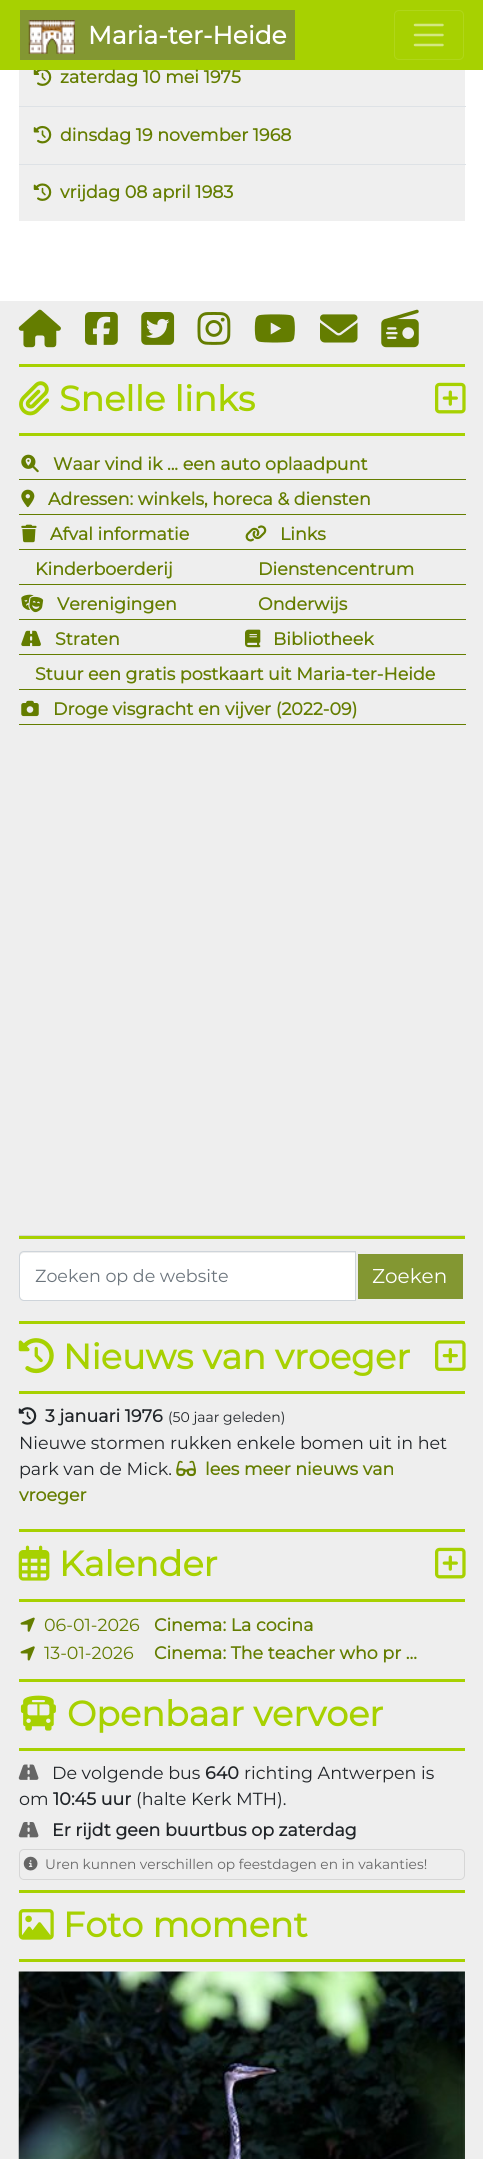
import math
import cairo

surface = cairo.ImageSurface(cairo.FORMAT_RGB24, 483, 2159)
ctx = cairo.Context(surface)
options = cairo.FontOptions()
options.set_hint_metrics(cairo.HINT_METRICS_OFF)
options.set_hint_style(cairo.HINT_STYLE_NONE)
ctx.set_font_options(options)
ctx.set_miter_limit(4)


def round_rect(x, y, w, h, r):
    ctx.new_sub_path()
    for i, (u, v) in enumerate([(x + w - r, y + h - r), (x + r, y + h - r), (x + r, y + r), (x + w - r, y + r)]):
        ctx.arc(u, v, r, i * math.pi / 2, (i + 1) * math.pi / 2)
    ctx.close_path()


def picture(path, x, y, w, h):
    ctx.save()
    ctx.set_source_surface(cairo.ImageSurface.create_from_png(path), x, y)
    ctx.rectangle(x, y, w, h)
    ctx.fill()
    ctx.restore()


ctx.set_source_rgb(0.933, 0.933, 0.933)
ctx.paint()
ctx.set_source_rgb(0.655, 0.82, 0.004)
ctx.rectangle(0, 0, 483, 70)
ctx.fill()
ctx.set_source_rgb(0.514, 0.592, 0.196)
ctx.rectangle(20, 10, 275, 50)
ctx.fill()
picture("img1.png", 28, 20, 47, 34)
ctx.select_font_face("Montserrat", cairo.FONT_SLANT_NORMAL, cairo.FONT_WEIGHT_BOLD)
ctx.set_font_size(25)
ctx.set_source_rgb(1, 1, 1)
ctx.move_to(88, 44)
ctx.show_text("Maria-ter-Heide")
round_rect(394.5, 10.5, 69, 49, 4.5)
ctx.set_source_rgb(0.69, 0.839, 0.102)
ctx.set_line_width(1)
ctx.stroke()
ctx.new_path()
ctx.move_to(415, 25)
ctx.line_to(442.5, 25)
ctx.move_to(415, 35)
ctx.line_to(442.5, 35)
ctx.move_to(415, 45)
ctx.line_to(442.5, 45)
ctx.set_source_rgb(0.827, 0.91, 0.502)
ctx.set_line_width(2.5)
ctx.set_line_cap(cairo.LINE_CAP_ROUND)
ctx.stroke()
ctx.set_source_rgb(1, 1, 1)
ctx.rectangle(0, 70, 483, 231)
ctx.fill()
ctx.set_source_rgb(0.937, 0.937, 0.937)
ctx.rectangle(19, 70, 446, 36)
ctx.fill()
picture("img2.png", 33, 70, 19, 16)
ctx.set_font_size(17.5)
ctx.set_source_rgb(0.392, 0.49, 0)
ctx.move_to(60, 83)
ctx.show_text("zaterdag 10 mei 1975")
ctx.set_source_rgb(0.937, 0.937, 0.937)
ctx.rectangle(19, 107, 446, 57)
ctx.fill()
ctx.set_source_rgb(0.871, 0.886, 0.902)
ctx.rectangle(19, 106, 447, 1)
ctx.fill()
picture("img3.png", 33, 125, 19, 19)
ctx.set_source_rgb(0.392, 0.49, 0)
ctx.move_to(60, 141)
ctx.show_text("dinsdag 19 november 1968")
ctx.set_source_rgb(0.937, 0.937, 0.937)
ctx.rectangle(19, 165, 446, 56)
ctx.fill()
ctx.set_source_rgb(0.871, 0.886, 0.902)
ctx.rectangle(19, 164, 447, 1)
ctx.fill()
picture("img4.png", 33, 183, 19, 18)
ctx.set_source_rgb(0.392, 0.49, 0)
ctx.move_to(60, 198)
ctx.show_text("vrijdag 08 april 1983")
picture("img5.png", 18, 309, 43, 39)
picture("img6.png", 85, 312, 33, 33)
picture("img7.png", 141, 312, 34, 33)
picture("img8.png", 197, 312, 34, 33)
picture("img9.png", 254, 314, 41, 29)
picture("img10.png", 320, 314, 38, 29)
picture("img11.png", 381, 309, 38, 39)
ctx.set_source_rgb(0.655, 0.82, 0.004)
ctx.rectangle(19, 364, 446, 3)
ctx.fill()
ctx.rectangle(19, 433, 446, 3)
ctx.fill()
picture("img12.png", 19, 381, 31, 35)
ctx.set_font_size(35)
ctx.move_to(59, 411)
ctx.show_text("Snelle links")
picture("img13.png", 435, 382, 31, 32)
ctx.set_source_rgb(0.392, 0.49, 0)
ctx.rectangle(19, 479, 447, 1)
ctx.fill()
picture("img14.png", 21, 454, 18, 19)
ctx.set_font_size(17.5)
ctx.move_to(53, 470)
ctx.show_text("Waar vind ik ... een auto oplaadpunt")
ctx.rectangle(19, 514, 447, 1)
ctx.fill()
picture("img15.png", 21, 489, 14, 19)
ctx.move_to(48, 505)
ctx.show_text("Adressen: winkels, horeca & diensten")
picture("img16.png", 21, 524, 16, 19)
ctx.move_to(50, 540)
ctx.show_text("Afval informatie")
ctx.rectangle(19, 549, 447, 1)
ctx.fill()
picture("img17.png", 245, 525, 22, 17)
ctx.move_to(280, 540)
ctx.show_text("Links")
ctx.move_to(35, 575)
ctx.show_text("Kinderboerderij")
ctx.rectangle(19, 584, 447, 1)
ctx.fill()
ctx.move_to(258, 575)
ctx.show_text("Dienstencentrum")
picture("img18.png", 21, 594, 23, 19)
ctx.move_to(57, 610)
ctx.show_text("Verenigingen")
ctx.rectangle(19, 619, 447, 1)
ctx.fill()
ctx.move_to(258, 610)
ctx.show_text("Onderwijs")
picture("img19.png", 21, 630, 20, 17)
ctx.move_to(55, 645)
ctx.show_text("Straten")
ctx.rectangle(19, 654, 447, 1)
ctx.fill()
picture("img20.png", 245, 629, 16, 19)
ctx.move_to(273, 645)
ctx.show_text("Bibliotheek")
ctx.rectangle(19, 689, 447, 1)
ctx.fill()
ctx.move_to(35, 680)
ctx.show_text("Stuur een gratis postkaart uit Maria-ter-Heide")
ctx.rectangle(19, 724, 447, 1)
ctx.fill()
picture("img21.png", 21, 700, 18, 17)
ctx.move_to(53, 715)
ctx.show_text("Droge visgracht en vijver (2022-09)")
ctx.set_source_rgb(0.839, 0.839, 0.839)
ctx.rectangle(19, 1235, 446, 1)
ctx.fill()
ctx.set_source_rgb(0.655, 0.82, 0.004)
ctx.rectangle(19, 1236, 446, 3)
ctx.fill()
ctx.set_source_rgb(1, 1, 1)
ctx.new_path()
ctx.move_to(24, 1253)
ctx.line_to(355, 1253)
ctx.line_to(355, 1300)
ctx.line_to(24, 1300)
ctx.curve_to(22, 1300, 20, 1298, 20, 1296)
ctx.line_to(20, 1257)
ctx.curve_to(20, 1255, 22, 1253, 24, 1253)
ctx.close_path()
ctx.fill()
ctx.new_path()
ctx.move_to(24, 1251.5)
ctx.line_to(355.5, 1251.5)
ctx.line_to(355.5, 1300.5)
ctx.line_to(24, 1300.5)
ctx.curve_to(21.5, 1300.5, 19.5, 1298.5, 19.5, 1296)
ctx.line_to(19.5, 1256)
ctx.curve_to(19.5, 1253.5, 21.5, 1251.5, 24, 1251.5)
ctx.close_path()
ctx.set_source_rgb(0.808, 0.831, 0.855)
ctx.set_line_width(1)
ctx.set_line_cap(cairo.LINE_CAP_BUTT)
ctx.stroke()
ctx.select_font_face("Montserrat Thin")
ctx.set_source_rgb(0.424, 0.459, 0.49)
ctx.move_to(35, 1282)
ctx.show_text("Zoeken op de website")
ctx.set_source_rgb(0.514, 0.592, 0.196)
ctx.rectangle(358, 1254, 105, 45)
ctx.fill()
ctx.set_font_size(20)
ctx.set_source_rgb(1, 1, 1)
ctx.move_to(372, 1283)
ctx.show_text("Zoeken")
ctx.set_source_rgb(0.655, 0.82, 0.004)
ctx.rectangle(19, 1321, 446, 3)
ctx.fill()
ctx.rectangle(19, 1391, 446, 3)
ctx.fill()
picture("img22.png", 18, 1338, 36, 36)
ctx.select_font_face("Montserrat", cairo.FONT_SLANT_NORMAL, cairo.FONT_WEIGHT_BOLD)
ctx.set_font_size(35)
ctx.move_to(63, 1369)
ctx.show_text("Nieuws van vroeger")
picture("img23.png", 435, 1340, 31, 31)
picture("img24.png", 18, 1407, 19, 18)
ctx.set_font_size(17.5)
ctx.set_source_rgb(0.129, 0.145, 0.161)
ctx.move_to(45, 1422)
ctx.show_text("3 januari 1976")
ctx.select_font_face("Montserrat Thin")
ctx.set_font_size(14)
ctx.move_to(168, 1422)
ctx.show_text("(50 jaar geleden)")
ctx.set_font_size(17.5)
ctx.move_to(19, 1449)
ctx.show_text("Nieuwe stormen rukken enkele bomen uit in het")
picture("img25.png", 176, 1460, 20, 17)
ctx.select_font_face("Montserrat", cairo.FONT_SLANT_NORMAL, cairo.FONT_WEIGHT_BOLD)
ctx.set_source_rgb(0.392, 0.49, 0)
ctx.move_to(205, 1475)
ctx.show_text("lees meer nieuws van")
ctx.move_to(19, 1501)
ctx.show_text("vroeger")
ctx.select_font_face("Montserrat Thin")
ctx.set_source_rgb(0.129, 0.145, 0.161)
ctx.move_to(19, 1475)
ctx.show_text("park van de Mick.")
ctx.set_source_rgb(0.655, 0.82, 0.004)
ctx.rectangle(19, 1529, 446, 3)
ctx.fill()
ctx.rectangle(19, 1599, 446, 3)
ctx.fill()
picture("img26.png", 18, 1545, 32, 36)
ctx.select_font_face("Montserrat", cairo.FONT_SLANT_NORMAL, cairo.FONT_WEIGHT_BOLD)
ctx.set_font_size(35)
ctx.move_to(59, 1576)
ctx.show_text("Kalender")
picture("img13.png", 435, 1547, 31, 32)
picture("img27.png", 20, 1617, 15, 15)
ctx.select_font_face("Montserrat Thin")
ctx.set_font_size(17.5)
ctx.set_source_rgb(0.392, 0.49, 0)
ctx.move_to(44, 1631)
ctx.show_text("06-01-2026")
ctx.select_font_face("Montserrat", cairo.FONT_SLANT_NORMAL, cairo.FONT_WEIGHT_BOLD)
ctx.move_to(154, 1631)
ctx.show_text("Cinema: La cocina")
picture("img28.png", 20, 1646, 15, 15)
ctx.select_font_face("Montserrat Thin")
ctx.move_to(44, 1659)
ctx.show_text("13-01-2026")
ctx.select_font_face("Montserrat", cairo.FONT_SLANT_NORMAL, cairo.FONT_WEIGHT_BOLD)
ctx.move_to(154, 1659)
ctx.show_text("Cinema: The teacher who pr ...")
ctx.set_source_rgb(0.655, 0.82, 0.004)
ctx.rectangle(19, 1679, 446, 3)
ctx.fill()
ctx.rectangle(19, 1748, 446, 3)
ctx.fill()
picture("img29.png", 20, 1695, 36, 36)
ctx.set_font_size(35)
ctx.move_to(67, 1726)
ctx.show_text("Openbaar vervoer")
picture("img30.png", 18, 1764, 21, 16)
ctx.select_font_face("Montserrat Thin")
ctx.set_font_size(17.5)
ctx.set_source_rgb(0.129, 0.145, 0.161)
ctx.move_to(52, 1779)
ctx.show_text("De volgende bus")
ctx.select_font_face("Montserrat", cairo.FONT_SLANT_NORMAL, cairo.FONT_WEIGHT_BOLD)
ctx.move_to(205, 1779)
ctx.show_text("640")
ctx.select_font_face("Montserrat Thin")
ctx.move_to(244, 1779)
ctx.show_text("richting Antwerpen is")
ctx.move_to(19, 1805)
ctx.show_text("om")
ctx.select_font_face("Montserrat", cairo.FONT_SLANT_NORMAL, cairo.FONT_WEIGHT_BOLD)
ctx.move_to(53, 1805)
ctx.show_text("10:45 uur")
ctx.select_font_face("Montserrat Thin")
ctx.move_to(136, 1805)
ctx.show_text("(halte Kerk MTH).")
picture("img31.png", 18, 1822, 21, 16)
ctx.select_font_face("Montserrat", cairo.FONT_SLANT_NORMAL, cairo.FONT_WEIGHT_BOLD)
ctx.move_to(52, 1836)
ctx.show_text("Er rijdt geen buurtbus op zaterdag")
round_rect(19.5, 1849.5, 445, 30, 4.5)
ctx.set_source_rgb(0.839, 0.839, 0.839)
ctx.stroke()
picture("img32.png", 23, 1856, 15, 15)
ctx.select_font_face("Montserrat Thin")
ctx.set_font_size(13.75)
ctx.set_source_rgb(0.4, 0.4, 0.4)
ctx.move_to(45, 1869)
ctx.show_text("Uren kunnen verschillen op feestdagen en in vakanties!")
ctx.set_source_rgb(0.655, 0.82, 0.004)
ctx.rectangle(19, 1890, 446, 3)
ctx.fill()
ctx.rectangle(19, 1959, 446, 3)
ctx.fill()
picture("img33.png", 18, 1909, 36, 31)
ctx.select_font_face("Montserrat", cairo.FONT_SLANT_NORMAL, cairo.FONT_WEIGHT_BOLD)
ctx.set_font_size(35)
ctx.move_to(63, 1937)
ctx.show_text("Foto moment")
picture("img34.png", 18, 1971, 447, 188)
surface.write_to_png("page.png")
